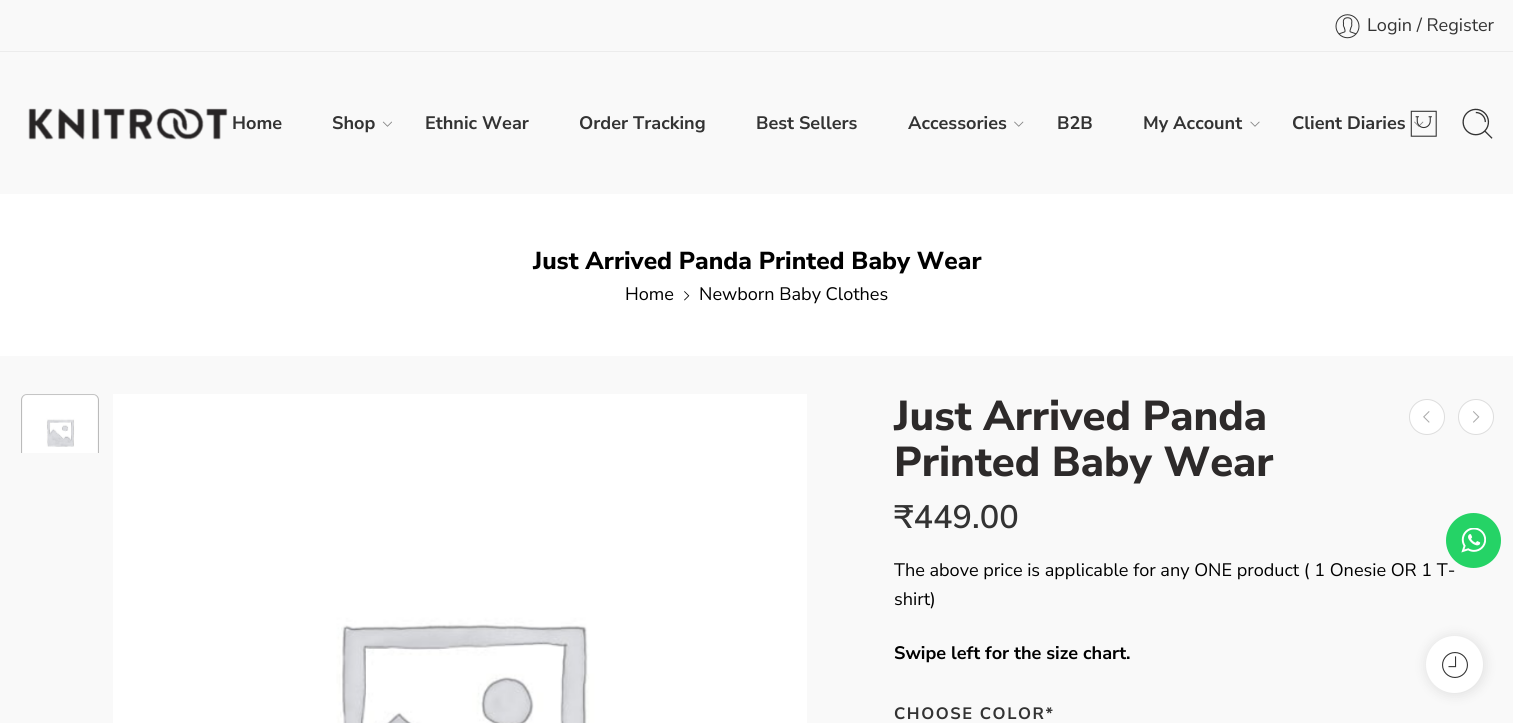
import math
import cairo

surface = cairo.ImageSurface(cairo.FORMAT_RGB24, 1513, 723)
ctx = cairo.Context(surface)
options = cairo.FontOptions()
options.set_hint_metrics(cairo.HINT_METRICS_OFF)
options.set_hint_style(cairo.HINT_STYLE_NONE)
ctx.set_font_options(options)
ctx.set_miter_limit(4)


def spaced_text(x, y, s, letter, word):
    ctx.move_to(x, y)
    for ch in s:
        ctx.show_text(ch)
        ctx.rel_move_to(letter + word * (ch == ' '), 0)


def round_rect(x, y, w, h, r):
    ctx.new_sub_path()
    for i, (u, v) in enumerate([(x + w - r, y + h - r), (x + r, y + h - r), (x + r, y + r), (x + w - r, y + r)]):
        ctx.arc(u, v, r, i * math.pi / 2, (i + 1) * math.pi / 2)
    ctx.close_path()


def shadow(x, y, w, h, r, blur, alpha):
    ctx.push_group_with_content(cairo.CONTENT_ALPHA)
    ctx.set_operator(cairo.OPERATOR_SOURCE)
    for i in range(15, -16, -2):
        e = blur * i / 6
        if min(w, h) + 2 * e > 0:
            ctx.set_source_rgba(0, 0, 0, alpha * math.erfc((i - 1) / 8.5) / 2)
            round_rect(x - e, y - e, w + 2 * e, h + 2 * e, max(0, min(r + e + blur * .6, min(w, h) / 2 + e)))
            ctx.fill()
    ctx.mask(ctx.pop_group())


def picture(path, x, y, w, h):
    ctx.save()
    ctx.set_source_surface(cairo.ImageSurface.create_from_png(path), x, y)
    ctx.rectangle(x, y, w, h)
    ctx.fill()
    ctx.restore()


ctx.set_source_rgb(1, 1, 1)
ctx.paint()
ctx.set_source_rgb(0.973, 0.973, 0.973)
ctx.rectangle(0, 0, 1513, 194)
ctx.fill()
ctx.set_source_rgb(0.925, 0.925, 0.925)
ctx.rectangle(0, 51, 1513, 1)
ctx.fill()
picture("img1.png", 1335, 14, 25, 25)
ctx.select_font_face("Nunito Sans")
ctx.set_font_size(18.1)
ctx.set_source_rgb(0.2, 0.2, 0.2)
ctx.move_to(1367, 31)
ctx.show_text("Login / Register")
picture("img2.png", 28, 108, 200, 32)
ctx.select_font_face("Nunito Sans", cairo.FONT_SLANT_NORMAL, cairo.FONT_WEIGHT_BOLD)
ctx.move_to(232, 129)
ctx.show_text("Home")
ctx.move_to(332, 129)
ctx.show_text("Shop")
picture("img3.png", 382, 121, 10, 6)
ctx.move_to(425, 129)
ctx.show_text("Ethnic Wear")
ctx.move_to(579, 129)
ctx.show_text("Order Tracking")
ctx.move_to(756, 129)
ctx.show_text("Best Sellers")
ctx.move_to(908, 129)
ctx.show_text("Accessories")
picture("img4.png", 1014, 121, 10, 6)
ctx.move_to(1057, 129)
ctx.show_text("B2B")
ctx.move_to(1143, 129)
ctx.show_text("My Account")
picture("img5.png", 1250, 121, 10, 6)
ctx.move_to(1292, 129)
ctx.show_text("Client Diaries")
picture("img7.png", 1410, 110, 27, 27)
picture("img6.png", 1414, 121, 10, 6)
picture("img8.png", 1462, 108, 31, 31)
ctx.select_font_face("Nunito Sans ExtraBold")
ctx.set_font_size(24.5)
ctx.set_source_rgb(0, 0, 0)
ctx.move_to(533, 269)
ctx.show_text("Just Arrived Panda Printed Baby Wear")
ctx.select_font_face("Nunito Sans")
ctx.set_font_size(18.1)
ctx.move_to(625, 300)
ctx.show_text("Home")
picture("img9.png", 684, 291, 6, 10)
ctx.move_to(699, 300)
ctx.show_text("Newborn Baby Clothes")
ctx.set_source_rgb(0.973, 0.973, 0.973)
ctx.rectangle(0, 356, 1513, 367)
ctx.fill()
ctx.save()
ctx.rectangle(20, 393, 80, 60)
ctx.clip()
round_rect(21.5, 394.5, 77, 76, 5.5)
ctx.set_source_rgb(0.733, 0.733, 0.733)
ctx.set_line_width(1)
ctx.stroke()
ctx.restore()
picture("img10.png", 23, 394, 74, 59)
picture("img11.png", 113, 394, 694, 329)
ctx.select_font_face("Nunito Sans ExtraBold")
ctx.set_font_size(41.75)
ctx.set_source_rgb(0.176, 0.165, 0.165)
ctx.move_to(894, 430)
ctx.show_text("Just Arrived Panda")
ctx.move_to(894, 476)
ctx.show_text("Printed Baby Wear")
ctx.set_source_rgb(1, 1, 1)
ctx.new_path()
ctx.arc(1427, 417, 17.5, 0, 2 * math.pi)
ctx.fill_preserve()
ctx.set_source_rgb(0.867, 0.867, 0.867)
ctx.set_line_width(1)
ctx.stroke()
picture("img12.png", 1423, 411, 7, 12)
ctx.set_source_rgb(1, 1, 1)
ctx.arc(1476, 417, 17.5, 0, 2 * math.pi)
ctx.fill_preserve()
ctx.set_source_rgb(0.867, 0.867, 0.867)
ctx.stroke()
picture("img13.png", 1473, 411, 7, 12)
ctx.select_font_face("Nunito Sans SemiBold")
ctx.set_font_size(32.5)
ctx.set_source_rgb(0.2, 0.2, 0.2)
ctx.move_to(894, 528)
ctx.show_text("₹449.00")
ctx.select_font_face("Nunito Sans")
ctx.set_font_size(18.1)
ctx.set_source_rgb(0, 0, 0)
ctx.move_to(894, 576)
ctx.show_text("The above price is applicable for any ONE product ( 1 Onesie OR 1 T-")
ctx.move_to(894, 605)
ctx.show_text("shirt)")
ctx.select_font_face("Nunito Sans", cairo.FONT_SLANT_NORMAL, cairo.FONT_WEIGHT_BOLD)
ctx.move_to(894, 659)
ctx.show_text("Swipe left for the size chart.")
ctx.set_font_size(16.5)
ctx.set_source_rgb(0.2, 0.2, 0.2)
spaced_text(894, 719, "CHOOSE COLOR*", 1.6, 0)
ctx.set_source_rgb(0.145, 0.827, 0.4)
ctx.new_path()
ctx.arc(1473.5, 540.5, 27.5, 0, 2 * math.pi)
ctx.fill()
picture("img14.png", 1461, 528, 25, 25)
ctx.set_source_rgb(0, 0, 0)
shadow(1426, 636, 59, 59, 29.5, 6, 0.1)
ctx.set_source_rgb(1, 1, 1)
ctx.arc(1454.5, 664.5, 28.5, 0, 2 * math.pi)
ctx.fill()
picture("img15.png", 1442, 652, 26, 26)
surface.write_to_png("page.png")
